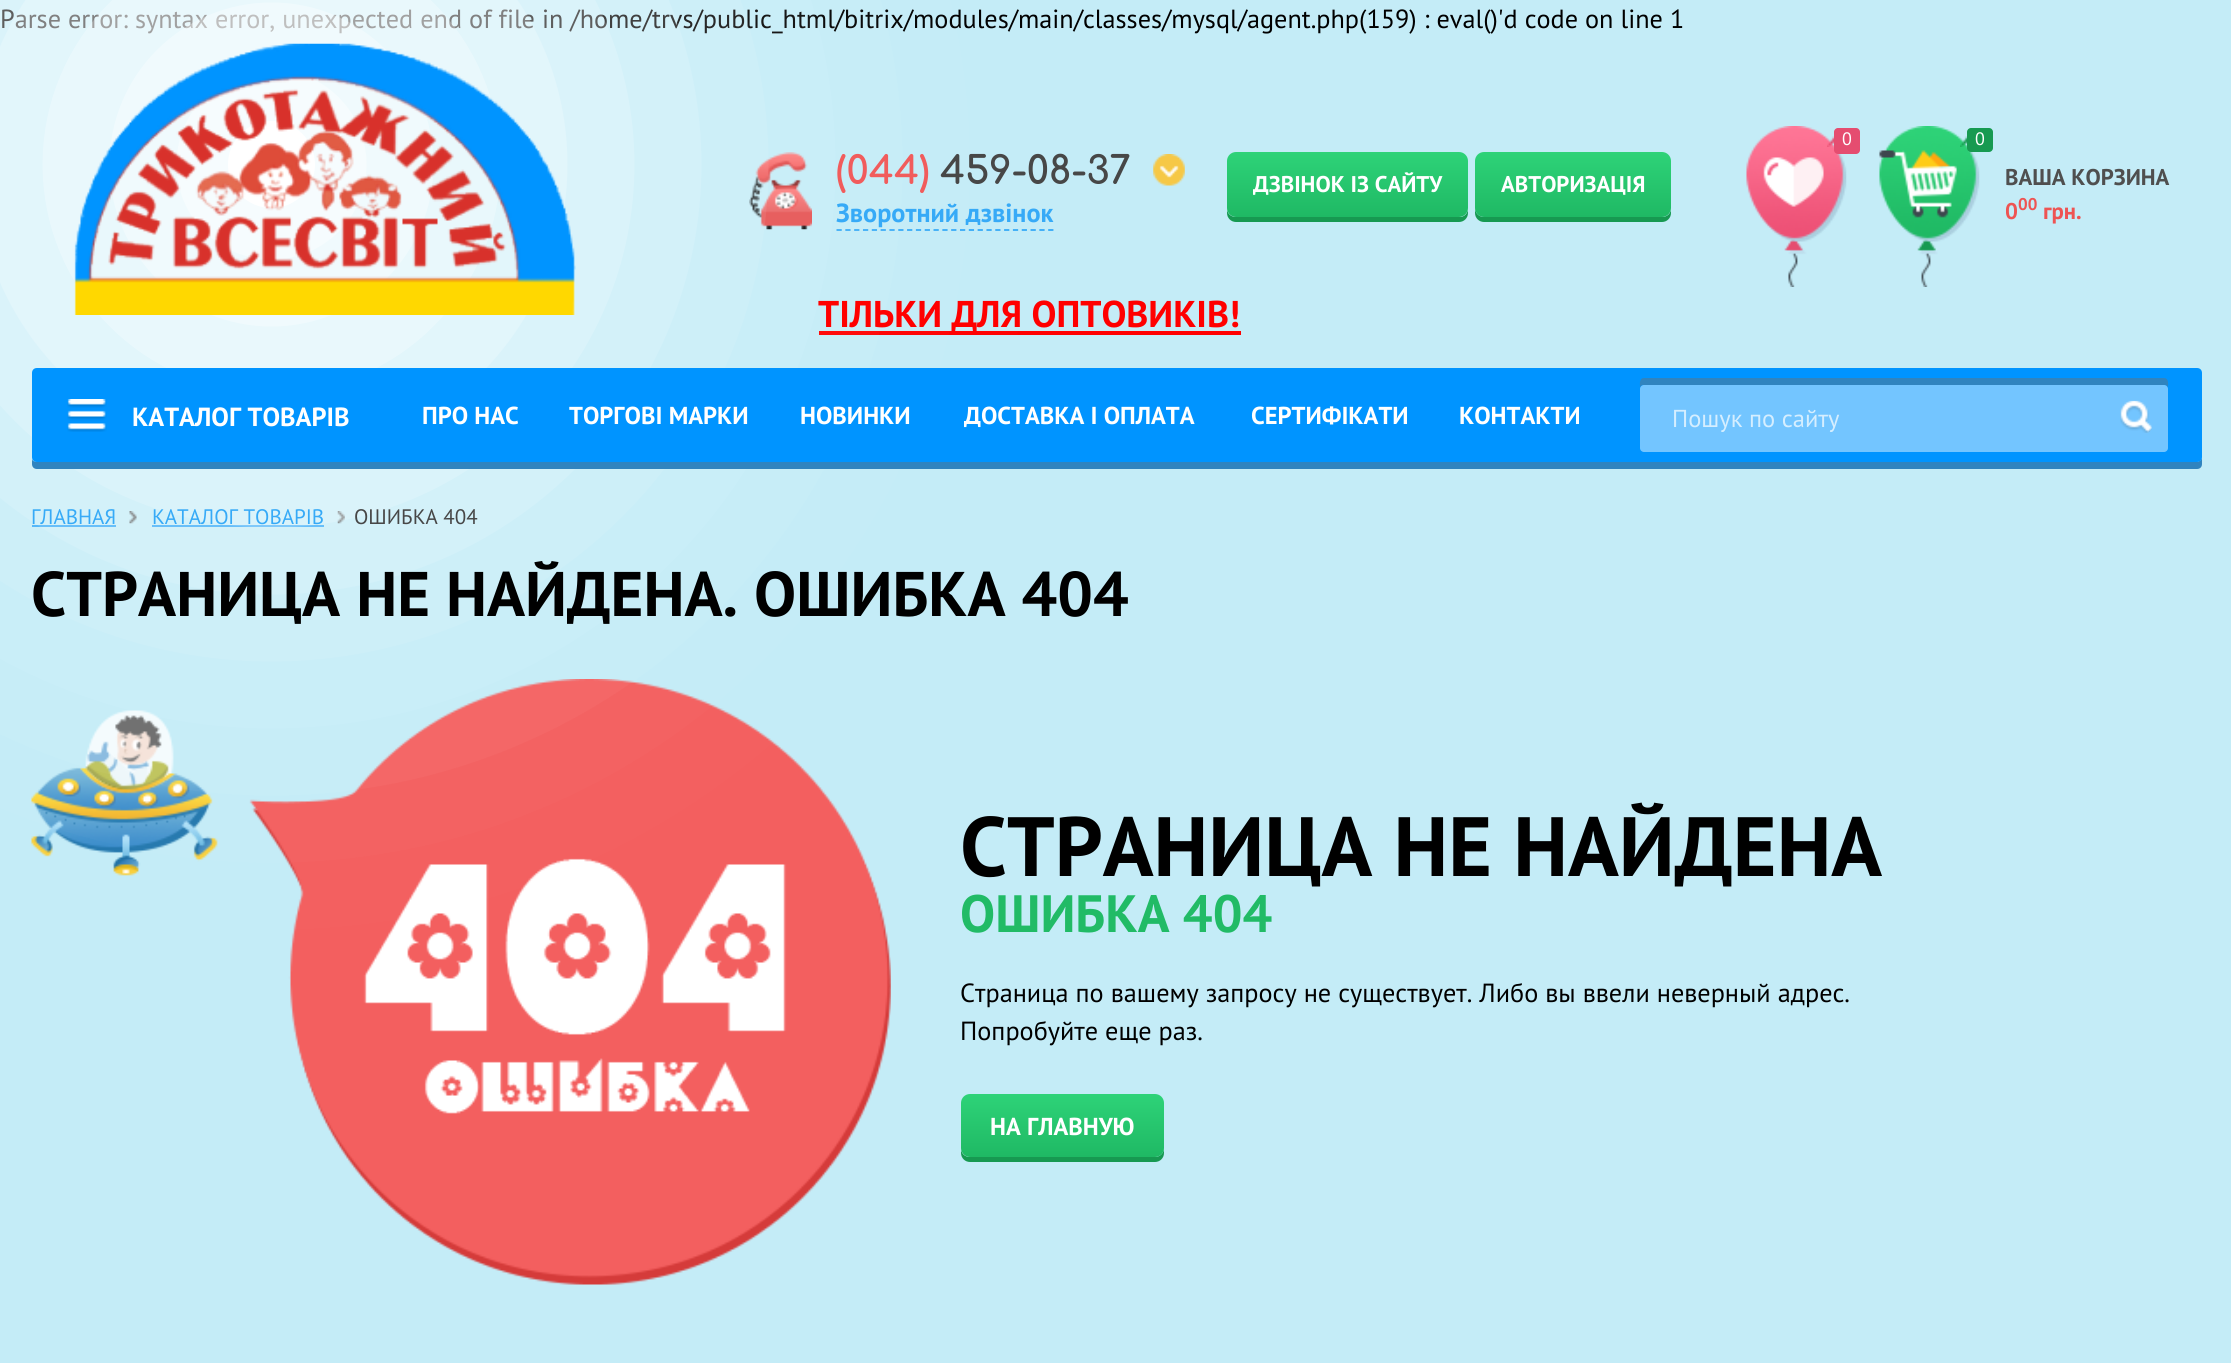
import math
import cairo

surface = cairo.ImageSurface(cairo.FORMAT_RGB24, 2231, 1363)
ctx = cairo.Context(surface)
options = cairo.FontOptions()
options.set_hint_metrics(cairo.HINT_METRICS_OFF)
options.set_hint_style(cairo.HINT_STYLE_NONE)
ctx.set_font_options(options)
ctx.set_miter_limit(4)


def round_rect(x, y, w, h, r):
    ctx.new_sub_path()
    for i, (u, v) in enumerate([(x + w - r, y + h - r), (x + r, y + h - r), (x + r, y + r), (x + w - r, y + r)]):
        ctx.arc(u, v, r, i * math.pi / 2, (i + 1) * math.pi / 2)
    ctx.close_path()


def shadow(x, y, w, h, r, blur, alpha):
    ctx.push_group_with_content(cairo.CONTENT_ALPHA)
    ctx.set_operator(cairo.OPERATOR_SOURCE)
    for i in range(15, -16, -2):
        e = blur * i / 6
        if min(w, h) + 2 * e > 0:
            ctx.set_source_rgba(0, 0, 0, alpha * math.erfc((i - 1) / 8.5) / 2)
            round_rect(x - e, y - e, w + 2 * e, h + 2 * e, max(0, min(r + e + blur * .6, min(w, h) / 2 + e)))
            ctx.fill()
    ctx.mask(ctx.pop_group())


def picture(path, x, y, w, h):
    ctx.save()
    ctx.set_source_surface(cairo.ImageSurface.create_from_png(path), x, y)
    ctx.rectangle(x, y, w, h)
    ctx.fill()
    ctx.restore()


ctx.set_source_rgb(0.769, 0.925, 0.965)
ctx.paint()
ctx.select_font_face("PT Sans")
ctx.set_font_size(26.25)
ctx.set_source_rgb(0, 0, 0)
ctx.move_to(0, 28)
ctx.show_text("Parse error: syntax error, unexpected end of file in /home/trvs/public_html/bitrix/modules/main/classes/mysql/agent.php(159) : eval()'d code on line 1")
picture("img2.png", 749, 152, 63, 78)
ctx.new_path()
ctx.move_to(836.5, 230)
ctx.line_to(1053.5, 230)
ctx.set_source_rgb(0.212, 0.667, 0.965)
ctx.set_line_width(1.8)
ctx.set_dash([5.25, 3.57])
ctx.stroke()
ctx.set_source_rgb(1, 0, 0)
ctx.rectangle(819, 331, 422, 4)
ctx.fill()
ctx.set_source_rgb(0.212, 0.667, 0.965)
ctx.rectangle(32, 525, 84, 2)
ctx.fill()
picture("img10.png", 129, 511, 8, 13)
ctx.rectangle(152, 525, 172, 2)
ctx.fill()
picture("img11.png", 337, 511, 8, 13)
picture("img12.png", 31, 679, 860, 606)
ctx.set_source_rgb(1, 1, 1)
shadow(9, -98, 525, 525, 262.5, 201, 1)
ctx.set_source_rgb(1, 1, 1)
ctx.arc(271.5, 164.5, 43.5, 0, 2 * math.pi)
ctx.fill()
picture("img1.png", 74, 43, 502, 272)
ctx.select_font_face("Comfortaa", cairo.FONT_SLANT_NORMAL, cairo.FONT_WEIGHT_BOLD)
ctx.set_font_size(38.5)
ctx.set_source_rgb(0.945, 0.361, 0.361)
ctx.move_to(836, 184)
ctx.show_text("(044)")
ctx.set_source_rgb(0.278, 0.278, 0.278)
ctx.move_to(940, 184)
ctx.show_text("459-08-37")
picture("img3.png", 1153, 154, 32, 32)
ctx.select_font_face("PT Sans", cairo.FONT_SLANT_NORMAL, cairo.FONT_WEIGHT_BOLD)
ctx.set_font_size(26.25)
ctx.set_source_rgb(0.212, 0.667, 0.965)
ctx.move_to(836, 222)
ctx.show_text("Зворотний дзвінок")
ctx.set_source_rgb(0.09, 0.6, 0.318)
ctx.new_path()
ctx.move_to(1227, 210)
ctx.line_to(1227, 213)
ctx.curve_to(1227, 218, 1231, 222, 1236, 222)
ctx.line_to(1459, 222)
ctx.curve_to(1464, 222, 1468, 218, 1468, 213)
ctx.line_to(1468, 210)
ctx.curve_to(1467, 214, 1464, 217, 1460, 217)
ctx.line_to(1236, 217)
ctx.curve_to(1231, 217, 1228, 214, 1227, 210)
ctx.close_path()
ctx.fill()
gradient = cairo.LinearGradient(1348, 152, 1348, 217)
gradient.add_color_stop_rgba(0, 0.18, 0.827, 0.471, 1)
gradient.add_color_stop_rgba(1, 0.122, 0.725, 0.392, 1)
ctx.set_source(gradient)
round_rect(1227, 152, 241, 65, 9)
ctx.fill()
ctx.set_font_size(22.75)
ctx.set_source_rgb(1, 1, 1)
ctx.move_to(1253, 192)
ctx.show_text("ДЗВІНОК ІЗ САЙТУ")
ctx.set_source_rgb(0.09, 0.6, 0.318)
ctx.new_path()
ctx.move_to(1475, 165)
ctx.line_to(1475, 213)
ctx.curve_to(1475, 218, 1479, 222, 1484, 222)
ctx.line_to(1662, 222)
ctx.curve_to(1667, 222, 1671, 218, 1671, 213)
ctx.line_to(1671, 210)
ctx.curve_to(1670, 214, 1667, 217, 1662, 217)
ctx.line_to(1484, 217)
ctx.curve_to(1479, 217, 1475, 213, 1475, 208)
ctx.close_path()
ctx.fill()
gradient = cairo.LinearGradient(1573, 152, 1573, 217)
gradient.add_color_stop_rgba(0, 0.18, 0.827, 0.471, 1)
gradient.add_color_stop_rgba(1, 0.122, 0.725, 0.392, 1)
ctx.set_source(gradient)
round_rect(1475, 152, 196, 65, 9)
ctx.fill()
ctx.set_source_rgb(1, 1, 1)
ctx.move_to(1501, 192)
ctx.show_text("АВТОРИЗАЦІЯ")
picture("img4.png", 1746, 126, 101, 161)
ctx.set_source_rgb(0.898, 0.302, 0.439)
round_rect(1834, 128, 26, 26, 4)
ctx.fill()
picture("img5.png", 1827, 136, 7, 11)
ctx.select_font_face("PT Sans")
ctx.set_font_size(18)
ctx.set_source_rgb(1, 1, 1)
ctx.move_to(1842, 145)
ctx.show_text("0")
picture("img6.png", 1879, 126, 101, 161)
ctx.set_source_rgb(0.09, 0.604, 0.318)
round_rect(1967, 128, 26, 24, 4)
ctx.fill()
picture("img7.png", 1960, 136, 7, 11)
ctx.set_source_rgb(1, 1, 1)
ctx.move_to(1975, 145)
ctx.show_text("0")
ctx.select_font_face("PT Sans", cairo.FONT_SLANT_NORMAL, cairo.FONT_WEIGHT_BOLD)
ctx.set_font_size(22.75)
ctx.set_source_rgb(0.31, 0.31, 0.31)
ctx.move_to(2005, 185)
ctx.show_text("ВАША КОРЗИНА")
ctx.save()
ctx.rectangle(2006, 161, 166, 67)
ctx.clip()
ctx.set_source_rgb(0.933, 0.329, 0.325)
ctx.move_to(2005, 219)
ctx.show_text("0")
ctx.restore()
ctx.set_font_size(17)
ctx.set_source_rgb(0.933, 0.329, 0.325)
ctx.move_to(2018, 210)
ctx.show_text("00")
ctx.set_font_size(22.75)
ctx.move_to(2043, 219)
ctx.show_text("грн.")
ctx.set_font_size(37.25)
ctx.set_source_rgb(1, 0, 0)
ctx.move_to(818, 327)
ctx.show_text("ТІЛЬКИ ДЛЯ ОПТОВИКІВ!")
ctx.set_source_rgb(0.188, 0.518, 0.749)
ctx.new_path()
ctx.move_to(32, 459)
ctx.line_to(32, 464)
ctx.curve_to(32, 467, 34, 469, 37, 469)
ctx.line_to(399, 469)
ctx.line_to(399, 462)
ctx.line_to(37, 462)
ctx.line_to(33, 461)
ctx.close_path()
ctx.fill()
ctx.set_source_rgb(0, 0.58, 1)
ctx.new_path()
ctx.move_to(37, 368)
ctx.line_to(399, 368)
ctx.line_to(399, 462)
ctx.line_to(37, 462)
ctx.curve_to(34, 462, 32, 460, 32, 457)
ctx.line_to(32, 373)
ctx.curve_to(32, 370, 34, 368, 37, 368)
ctx.close_path()
ctx.fill()
picture("img8.png", 67, 399, 40, 33)
ctx.set_font_size(26.25)
ctx.set_source_rgb(1, 1, 1)
ctx.move_to(132, 426)
ctx.show_text("КАТАЛОГ ТОВАРІВ")
ctx.set_source_rgb(0.188, 0.518, 0.749)
ctx.new_path()
ctx.move_to(399, 462)
ctx.line_to(399, 469)
ctx.line_to(543, 469)
ctx.line_to(543, 375)
ctx.line_to(542, 375)
ctx.line_to(542, 462)
ctx.close_path()
ctx.fill()
ctx.set_source_rgb(0, 0.58, 1)
ctx.rectangle(399, 368, 376, 94)
ctx.fill()
ctx.set_font_size(24.5)
ctx.set_source_rgb(1, 1, 1)
ctx.move_to(422, 424)
ctx.show_text("ПРО НАС")
ctx.set_source_rgb(0.188, 0.518, 0.749)
ctx.rectangle(543, 462, 232, 7)
ctx.fill()
ctx.set_source_rgb(1, 1, 1)
ctx.move_to(569, 424)
ctx.show_text("ТОРГОВІ МАРКИ")
ctx.set_source_rgb(0.188, 0.518, 0.749)
ctx.new_path()
ctx.move_to(775, 375)
ctx.line_to(775, 469)
ctx.line_to(935, 469)
ctx.line_to(935, 375)
ctx.line_to(934, 375)
ctx.line_to(934, 462)
ctx.line_to(775, 462)
ctx.close_path()
ctx.fill()
ctx.set_source_rgb(0, 0.58, 1)
ctx.rectangle(775, 368, 660, 94)
ctx.fill()
ctx.set_source_rgb(1, 1, 1)
ctx.move_to(800, 424)
ctx.show_text("НОВИНКИ")
ctx.set_source_rgb(0.188, 0.518, 0.749)
ctx.rectangle(935, 462, 500, 7)
ctx.fill()
ctx.set_source_rgb(1, 1, 1)
ctx.move_to(964, 424)
ctx.show_text("ДОСТАВКА І ОПЛАТА")
ctx.move_to(1251, 424)
ctx.show_text("СЕРТИФІКАТИ")
ctx.set_source_rgb(0.188, 0.518, 0.749)
ctx.new_path()
ctx.move_to(1435, 462)
ctx.line_to(1435, 469)
ctx.line_to(1607, 469)
ctx.line_to(1607, 375)
ctx.line_to(1606, 375)
ctx.line_to(1606, 462)
ctx.close_path()
ctx.fill()
ctx.set_source_rgb(0, 0.58, 1)
ctx.rectangle(1435, 368, 172, 94)
ctx.fill()
ctx.set_source_rgb(1, 1, 1)
ctx.move_to(1459, 424)
ctx.show_text("КОНТАКТИ")
ctx.set_source_rgb(0.188, 0.518, 0.749)
ctx.new_path()
ctx.move_to(1607, 462)
ctx.line_to(1607, 469)
ctx.line_to(2197, 469)
ctx.curve_to(2200, 469, 2202, 467, 2202, 464)
ctx.line_to(2202, 380)
ctx.line_to(2202, 378)
ctx.line_to(2202, 457)
ctx.curve_to(2202, 460, 2199, 462, 2196, 462)
ctx.close_path()
ctx.fill()
ctx.set_source_rgb(0, 0.58, 1)
ctx.new_path()
ctx.move_to(1607, 368)
ctx.line_to(2197, 368)
ctx.curve_to(2200, 368, 2202, 370, 2202, 373)
ctx.line_to(2202, 457)
ctx.curve_to(2202, 460, 2200, 462, 2197, 462)
ctx.line_to(1607, 462)
ctx.close_path()
ctx.fill()
ctx.set_source_rgb(0.188, 0.518, 0.749)
ctx.new_path()
ctx.move_to(1644, 378)
ctx.curve_to(1639, 378, 1640, 384, 1640, 387)
ctx.curve_to(1641, 386, 1642, 385, 1643, 385)
ctx.line_to(2165, 385)
ctx.curve_to(2166, 385, 2167, 386, 2168, 387)
ctx.curve_to(2168, 384, 2169, 378, 2164, 378)
ctx.close_path()
ctx.fill()
ctx.set_source_rgb(0.451, 0.773, 1)
round_rect(1640, 385, 528, 67, 4)
ctx.fill()
ctx.select_font_face("PT Sans")
ctx.set_source_rgb(0.835, 0.933, 1)
ctx.move_to(1672, 427)
ctx.show_text("Пошук по сайту")
picture("img9.png", 2120, 400, 32, 33)
ctx.set_font_size(21)
ctx.set_source_rgb(0.212, 0.667, 0.965)
ctx.move_to(31, 524)
ctx.show_text("ГЛАВНАЯ")
ctx.move_to(152, 524)
ctx.show_text("КАТАЛОГ ТОВАРІВ")
ctx.set_source_rgb(0.278, 0.278, 0.278)
ctx.move_to(354, 524)
ctx.show_text("ОШИБКА 404")
ctx.select_font_face("PT Sans", cairo.FONT_SLANT_NORMAL, cairo.FONT_WEIGHT_BOLD)
ctx.set_font_size(63)
ctx.set_source_rgb(0, 0, 0)
ctx.move_to(31, 616)
ctx.show_text("СТРАНИЦА НЕ НАЙДЕНА. ОШИБКА 404")
ctx.set_font_size(84)
ctx.move_to(960, 876)
ctx.show_text("СТРАНИЦА НЕ НАЙДЕНА")
ctx.set_font_size(52.5)
ctx.set_source_rgb(0.129, 0.733, 0.4)
ctx.move_to(960, 932)
ctx.show_text("ОШИБКА 404")
ctx.select_font_face("PT Sans")
ctx.set_font_size(26.25)
ctx.set_source_rgb(0, 0, 0)
ctx.move_to(960, 1002)
ctx.show_text("Страница по вашему запросу не существует. Либо вы ввели неверный адрес.")
ctx.move_to(960, 1040)
ctx.show_text("Попробуйте еще раз.")
ctx.set_source_rgb(0.09, 0.6, 0.318)
ctx.new_path()
ctx.move_to(961, 1150)
ctx.line_to(961, 1153)
ctx.curve_to(961, 1158, 965, 1162, 970, 1162)
ctx.line_to(1155, 1162)
ctx.curve_to(1160, 1162, 1164, 1158, 1164, 1153)
ctx.line_to(1164, 1106)
ctx.line_to(1164, 1148)
ctx.curve_to(1164, 1153, 1160, 1157, 1155, 1157)
ctx.line_to(970, 1157)
ctx.curve_to(965, 1157, 962, 1154, 961, 1150)
ctx.close_path()
ctx.fill()
gradient = cairo.LinearGradient(1062, 1094, 1062, 1157)
gradient.add_color_stop_rgba(0, 0.18, 0.827, 0.471, 1)
gradient.add_color_stop_rgba(1, 0.122, 0.725, 0.392, 1)
ctx.set_source(gradient)
round_rect(961, 1094, 203, 63, 9)
ctx.fill()
ctx.select_font_face("PT Sans", cairo.FONT_SLANT_NORMAL, cairo.FONT_WEIGHT_BOLD)
ctx.set_font_size(24.5)
ctx.set_source_rgb(1, 1, 1)
ctx.move_to(990, 1135)
ctx.show_text("НА ГЛАВНУЮ")
surface.write_to_png("page.png")
